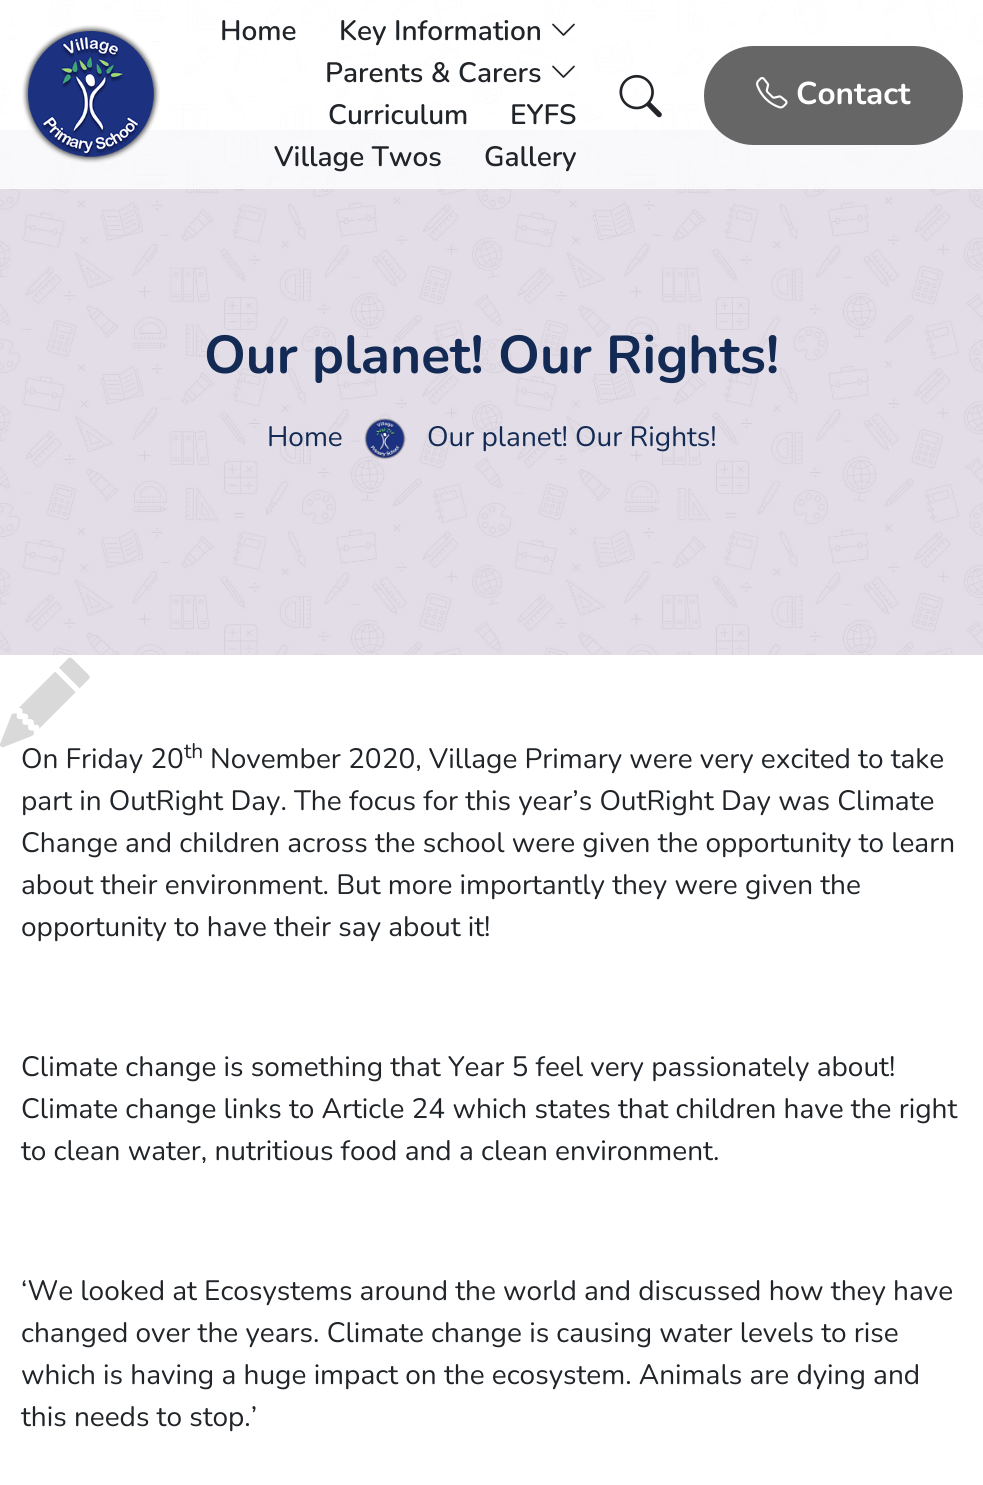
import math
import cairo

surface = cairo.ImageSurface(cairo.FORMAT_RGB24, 983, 1485)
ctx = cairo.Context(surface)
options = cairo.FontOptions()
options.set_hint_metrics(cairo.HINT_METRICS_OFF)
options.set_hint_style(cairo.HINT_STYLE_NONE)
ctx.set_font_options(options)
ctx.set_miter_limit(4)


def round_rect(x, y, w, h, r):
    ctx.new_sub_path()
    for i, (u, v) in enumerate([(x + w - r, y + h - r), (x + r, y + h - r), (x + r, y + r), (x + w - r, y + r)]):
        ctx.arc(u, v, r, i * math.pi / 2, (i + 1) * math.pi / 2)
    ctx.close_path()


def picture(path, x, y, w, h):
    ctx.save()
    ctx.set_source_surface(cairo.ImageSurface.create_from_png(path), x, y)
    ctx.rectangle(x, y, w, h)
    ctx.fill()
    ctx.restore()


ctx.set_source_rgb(1, 1, 1)
ctx.paint()
picture("img1.png", 0, 0, 983, 655)
ctx.set_source_rgba(0.235, 0.118, 0.361, 0.15)
ctx.rectangle(0, 130, 983, 525)
ctx.fill()
ctx.set_source_rgba(1, 1, 1, 0.8)
ctx.rectangle(0, 0, 983, 189)
ctx.fill()
picture("img2.png", 22, 25, 138, 138)
ctx.select_font_face("Nunito SemiBold")
ctx.set_font_size(28)
ctx.set_source_rgb(0.129, 0.145, 0.161)
ctx.move_to(220, 40)
ctx.show_text("Home")
ctx.move_to(339, 40)
ctx.show_text("Key Information")
picture("img3.png", 552, 23, 23, 13)
ctx.move_to(325, 82)
ctx.show_text("Parents & Carers")
picture("img4.png", 552, 65, 23, 13)
ctx.move_to(328, 124)
ctx.show_text("Curriculum")
ctx.move_to(510, 124)
ctx.show_text("EYFS")
ctx.move_to(274, 166)
ctx.show_text("Village Twos")
ctx.move_to(484, 166)
ctx.show_text("Gallery")
picture("img5.png", 619, 74, 43, 44)
ctx.set_source_rgb(0.4, 0.4, 0.4)
round_rect(704, 46, 259, 99, 49.5)
ctx.fill()
picture("img6.png", 756, 77, 32, 32)
ctx.select_font_face("Nunito", cairo.FONT_SLANT_NORMAL, cairo.FONT_WEIGHT_BOLD)
ctx.set_font_size(31.5)
ctx.set_source_rgb(1, 1, 1)
ctx.move_to(796, 104)
ctx.show_text("Contact")
ctx.set_font_size(53.25)
ctx.set_source_rgb(0.078, 0.169, 0.329)
ctx.move_to(204, 373)
ctx.show_text("Our planet! Our Rights!")
ctx.select_font_face("Nunito")
ctx.set_font_size(28)
ctx.move_to(267, 446)
ctx.show_text("Home")
picture("img7.png", 364, 418, 42, 42)
ctx.move_to(427, 446)
ctx.show_text("Our planet! Our Rights!")
picture("img8.png", 0, 657, 90, 91)
ctx.set_source_rgb(0.129, 0.145, 0.161)
ctx.move_to(21, 768)
ctx.show_text("On Friday 20")
ctx.set_font_size(21)
ctx.move_to(184, 758)
ctx.show_text("th")
ctx.set_font_size(28)
ctx.move_to(210, 768)
ctx.show_text("November 2020, Village Primary were very excited to take")
ctx.move_to(21, 810)
ctx.show_text("part in OutRight Day. The focus for this year’s OutRight Day was Climate")
ctx.move_to(21, 852)
ctx.show_text("Change and children across the school were given the opportunity to learn")
ctx.move_to(21, 894)
ctx.show_text("about their environment. But more importantly they were given the")
ctx.move_to(21, 936)
ctx.show_text("opportunity to have their say about it!")
ctx.move_to(21, 1076)
ctx.show_text("Climate change is something that Year 5 feel very passionately about!")
ctx.move_to(21, 1118)
ctx.show_text("Climate change links to Article 24 which states that children have the right")
ctx.move_to(21, 1160)
ctx.show_text("to clean water, nutritious food and a clean environment.")
ctx.move_to(21, 1300)
ctx.show_text("‘We looked at Ecosystems around the world and discussed how they have")
ctx.move_to(21, 1342)
ctx.show_text("changed over the years. Climate change is causing water levels to rise")
ctx.move_to(21, 1384)
ctx.show_text("which is having a huge impact on the ecosystem. Animals are dying and")
ctx.move_to(21, 1426)
ctx.show_text("this needs to stop.’")
surface.write_to_png("page.png")
